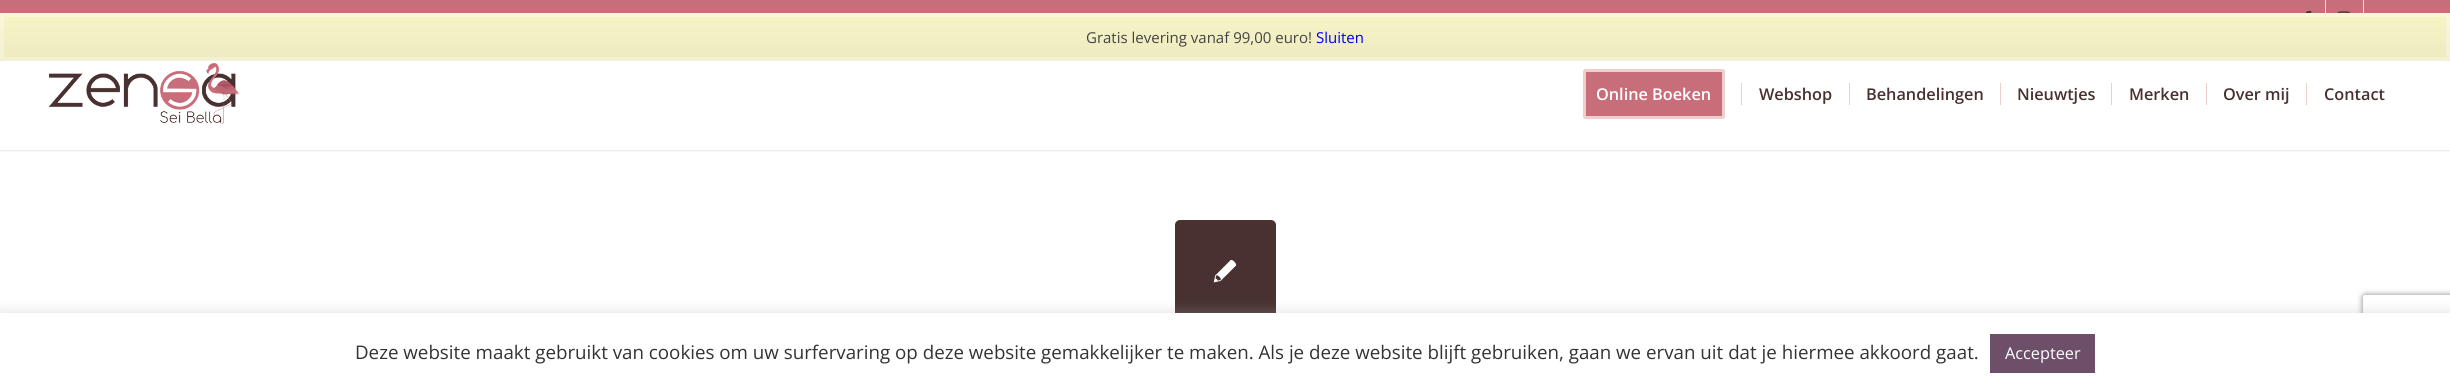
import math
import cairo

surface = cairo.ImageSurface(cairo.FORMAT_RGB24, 2450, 387)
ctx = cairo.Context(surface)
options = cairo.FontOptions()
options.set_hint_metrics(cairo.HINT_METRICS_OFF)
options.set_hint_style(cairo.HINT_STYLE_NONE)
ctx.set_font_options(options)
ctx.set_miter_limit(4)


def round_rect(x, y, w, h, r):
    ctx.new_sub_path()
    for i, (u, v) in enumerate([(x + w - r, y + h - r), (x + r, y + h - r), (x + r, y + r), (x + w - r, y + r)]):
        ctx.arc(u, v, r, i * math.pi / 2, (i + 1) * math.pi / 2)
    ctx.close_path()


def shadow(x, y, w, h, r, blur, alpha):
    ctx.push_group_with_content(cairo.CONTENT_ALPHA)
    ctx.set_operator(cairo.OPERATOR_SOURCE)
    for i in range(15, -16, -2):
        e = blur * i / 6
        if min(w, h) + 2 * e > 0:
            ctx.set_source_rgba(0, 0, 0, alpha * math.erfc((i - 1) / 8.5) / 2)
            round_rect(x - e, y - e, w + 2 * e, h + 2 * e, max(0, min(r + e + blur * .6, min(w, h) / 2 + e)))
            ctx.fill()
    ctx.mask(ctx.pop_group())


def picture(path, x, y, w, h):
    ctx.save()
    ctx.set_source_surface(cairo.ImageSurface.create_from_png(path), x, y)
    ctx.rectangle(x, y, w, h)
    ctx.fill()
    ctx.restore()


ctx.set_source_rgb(1, 1, 1)
ctx.paint()
ctx.save()
ctx.rectangle(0, 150, 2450, 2)
ctx.clip()
ctx.set_source_rgb(0, 0, 0)
shadow(-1, -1, 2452, 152, 0, 1, 0.1)
ctx.restore()
gradient = cairo.LinearGradient(1225, 12, 1225, 61)
gradient.add_color_stop_rgba(0, 0.969, 0.961, 0.776, 1)
gradient.add_color_stop_rgba(1, 0.933, 0.918, 0.757, 1)
ctx.set_source(gradient)
ctx.rectangle(0, 13, 2450, 48)
ctx.fill()
ctx.rectangle(2, 15, 2446, 44)
ctx.set_source_rgba(1, 1, 1, 0.3)
ctx.set_line_width(4)
ctx.stroke()
ctx.select_font_face("Open Sans")
ctx.set_font_size(15)
ctx.set_source_rgb(0.267, 0.267, 0.267)
ctx.move_to(1086, 43)
ctx.show_text("Gratis levering vanaf 99,00 euro!")
ctx.set_source_rgb(0, 0, 0.933)
ctx.move_to(1316, 43)
ctx.show_text("Sluiten")
ctx.set_source_rgb(0.784, 0.431, 0.478)
ctx.rectangle(0, 0, 2450, 13)
ctx.fill()
ctx.set_source_rgb(0.882, 0.882, 0.882)
ctx.rectangle(2325, 0, 1, 13)
ctx.fill()
picture("img1.png", 2305, 11, 7, 2)
ctx.rectangle(2363, 0, 1, 13)
ctx.fill()
picture("img2.png", 2337, 11, 14, 2)
picture("img3.png", 48, 63, 192, 61)
ctx.set_source_rgb(0.784, 0.431, 0.478)
round_rect(1584.5, 70.5, 139, 47, 1)
ctx.fill_preserve()
ctx.set_source_rgb(0.933, 0.812, 0.8)
ctx.set_line_width(3)
ctx.stroke()
ctx.select_font_face("Open Sans SemiBold")
ctx.set_font_size(16.25)
ctx.set_source_rgb(1, 1, 1)
ctx.move_to(1596, 100)
ctx.show_text("Online Boeken")
ctx.set_source_rgb(0.282, 0.192, 0.188)
ctx.move_to(1759, 100)
ctx.show_text("Webshop")
ctx.set_source_rgb(0.933, 0.812, 0.8)
ctx.rectangle(1741, 83, 1, 22)
ctx.fill()
ctx.set_source_rgb(0.282, 0.192, 0.188)
ctx.move_to(1866, 100)
ctx.show_text("Behandelingen")
ctx.set_source_rgb(0.933, 0.812, 0.8)
ctx.rectangle(1849, 83, 1, 22)
ctx.fill()
ctx.set_source_rgb(0.282, 0.192, 0.188)
ctx.move_to(2017, 100)
ctx.show_text("Nieuwtjes")
ctx.set_source_rgb(0.933, 0.812, 0.8)
ctx.rectangle(2000, 83, 1, 22)
ctx.fill()
ctx.set_source_rgb(0.282, 0.192, 0.188)
ctx.move_to(2129, 100)
ctx.show_text("Merken")
ctx.set_source_rgb(0.933, 0.812, 0.8)
ctx.rectangle(2111, 83, 1, 22)
ctx.fill()
ctx.set_source_rgb(0.282, 0.192, 0.188)
ctx.move_to(2223, 100)
ctx.show_text("Over mij")
ctx.set_source_rgb(0.933, 0.812, 0.8)
ctx.rectangle(2206, 83, 1, 22)
ctx.fill()
ctx.set_source_rgb(0.282, 0.192, 0.188)
ctx.move_to(2324, 100)
ctx.show_text("Contact")
ctx.set_source_rgb(0.933, 0.812, 0.8)
ctx.rectangle(2306, 83, 1, 22)
ctx.fill()
ctx.set_source_rgb(0.282, 0.192, 0.188)
round_rect(1175, 220, 101, 101, 5)
ctx.fill()
picture("img4.png", 1213, 259, 24, 24)
ctx.set_source_rgb(0.675, 0.671, 0.671)
shadow(0, 311, 2450, 75, 0, 6, 0.3)
ctx.save()
ctx.set_fill_rule(cairo.FILL_RULE_EVEN_ODD)
ctx.new_path()
ctx.move_to(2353, 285)
ctx.line_to(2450, 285)
ctx.line_to(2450, 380)
ctx.line_to(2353, 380)
ctx.close_path()
ctx.move_to(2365.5, 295)
ctx.line_to(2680.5, 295)
ctx.curve_to(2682, 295, 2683, 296, 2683, 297.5)
ctx.line_to(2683, 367.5)
ctx.curve_to(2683, 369, 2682, 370, 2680.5, 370)
ctx.line_to(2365.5, 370)
ctx.curve_to(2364, 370, 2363, 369, 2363, 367.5)
ctx.line_to(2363, 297.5)
ctx.curve_to(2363, 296, 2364, 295, 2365.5, 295)
ctx.close_path()
ctx.clip()
ctx.set_source_rgb(0.502, 0.502, 0.502)
shadow(2363, 295, 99, 75, 2.5, 3, 1)
ctx.restore()
ctx.set_source_rgb(1, 1, 1)
ctx.rectangle(0, 313, 2450, 74)
ctx.fill()
ctx.select_font_face("Open Sans")
ctx.set_font_size(18.75)
ctx.set_source_rgb(0.2, 0.2, 0.2)
ctx.move_to(355, 359)
ctx.show_text("Deze website maakt gebruikt van cookies om uw surfervaring op deze website gemakkelijker te maken. Als je deze website blijft gebruiken, gaan we ervan uit dat je hiermee akkoord gaat.")
ctx.set_source_rgb(0.427, 0.31, 0.412)
ctx.rectangle(1990, 334, 105, 39)
ctx.fill()
ctx.set_font_size(16.25)
ctx.set_source_rgb(1, 1, 1)
ctx.move_to(2005, 359)
ctx.show_text("Accepteer")
surface.write_to_png("page.png")
